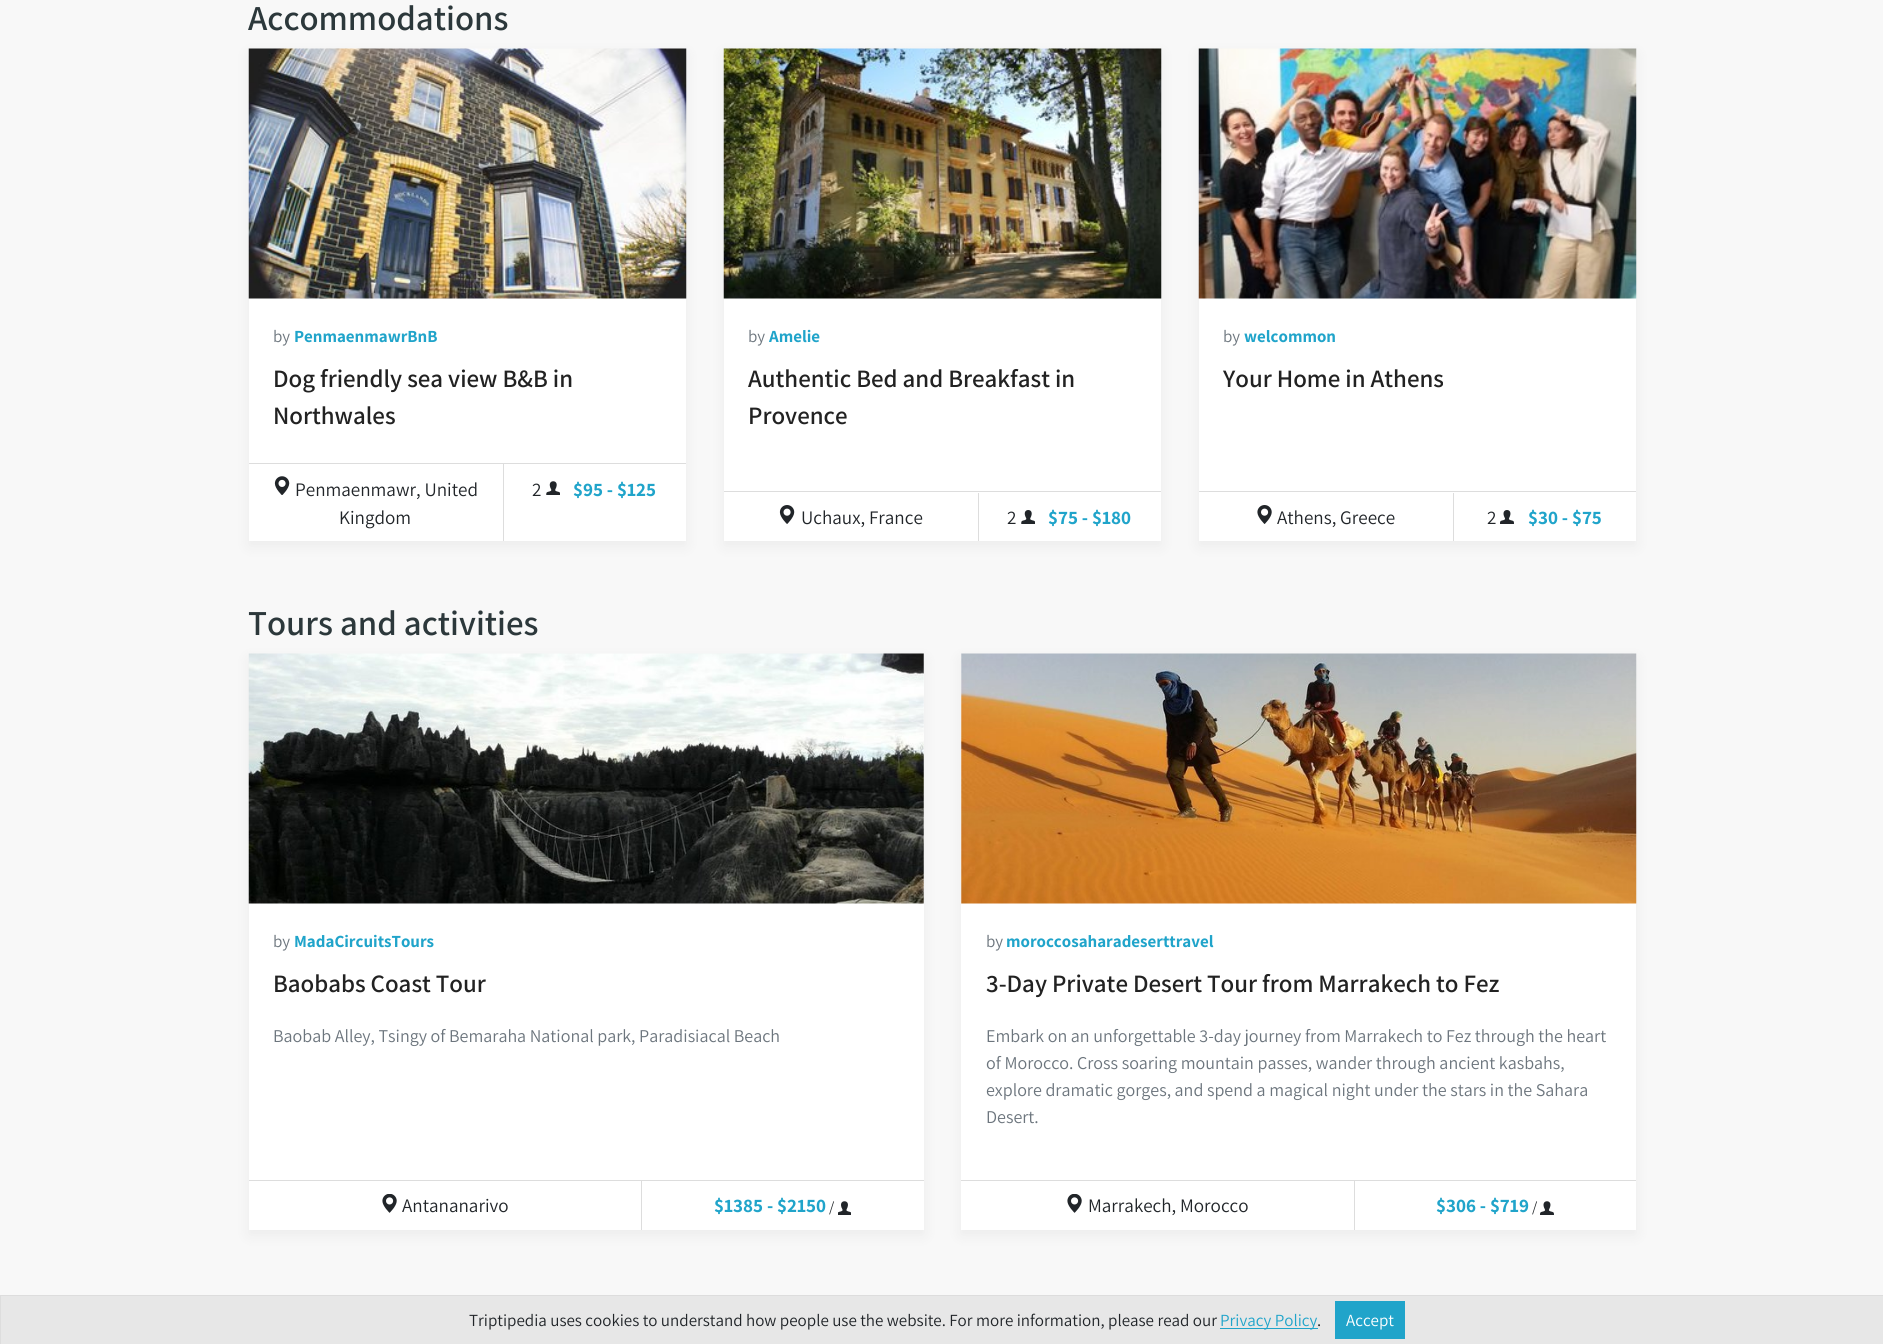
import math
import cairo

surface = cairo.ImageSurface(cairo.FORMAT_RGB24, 1883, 1344)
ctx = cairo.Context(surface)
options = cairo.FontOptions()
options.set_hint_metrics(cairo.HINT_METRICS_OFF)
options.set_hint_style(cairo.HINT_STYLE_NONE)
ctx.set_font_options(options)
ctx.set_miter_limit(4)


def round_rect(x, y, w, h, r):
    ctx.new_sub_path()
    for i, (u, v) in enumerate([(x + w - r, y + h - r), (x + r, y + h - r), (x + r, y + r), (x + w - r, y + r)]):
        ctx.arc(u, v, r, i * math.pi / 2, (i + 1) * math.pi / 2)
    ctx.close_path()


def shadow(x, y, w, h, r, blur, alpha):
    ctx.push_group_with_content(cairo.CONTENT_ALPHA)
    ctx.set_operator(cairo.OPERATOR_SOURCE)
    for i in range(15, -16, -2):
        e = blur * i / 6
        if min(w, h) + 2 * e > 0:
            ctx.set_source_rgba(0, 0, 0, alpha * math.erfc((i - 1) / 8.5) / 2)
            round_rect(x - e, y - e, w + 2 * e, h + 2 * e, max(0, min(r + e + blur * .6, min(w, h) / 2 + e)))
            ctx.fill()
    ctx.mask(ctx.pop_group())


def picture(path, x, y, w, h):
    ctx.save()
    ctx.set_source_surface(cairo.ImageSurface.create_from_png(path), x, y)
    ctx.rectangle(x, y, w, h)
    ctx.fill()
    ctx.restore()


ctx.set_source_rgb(0.969, 0.969, 0.969)
ctx.paint()
ctx.select_font_face("Assistant SemiBold")
ctx.set_font_size(35)
ctx.set_source_rgb(0.173, 0.22, 0.231)
ctx.move_to(248, 30)
ctx.show_text("Accommodations")
ctx.set_source_rgb(0, 0, 0)
shadow(249, 54, 437, 492, 0, 7.5, 0.05)
ctx.set_source_rgb(1, 1, 1)
ctx.rectangle(249, 298, 437, 243)
ctx.fill()
picture("img1.png", 248, 48, 439, 251)
ctx.select_font_face("Assistant")
ctx.set_font_size(17)
ctx.set_source_rgb(0.424, 0.459, 0.49)
ctx.move_to(273, 342)
ctx.show_text("by")
ctx.select_font_face("Assistant", cairo.FONT_SLANT_NORMAL, cairo.FONT_WEIGHT_BOLD)
ctx.set_source_rgb(0.125, 0.643, 0.792)
ctx.move_to(294, 342)
ctx.show_text("PenmaenmawrBnB")
ctx.select_font_face("Assistant SemiBold")
ctx.set_font_size(25)
ctx.set_source_rgb(0.133, 0.133, 0.133)
ctx.move_to(273, 387)
ctx.show_text("Dog friendly sea view B&B in")
ctx.move_to(273, 424)
ctx.show_text("Northwales")
ctx.set_source_rgb(0.867, 0.867, 0.867)
ctx.rectangle(249, 463, 437, 1)
ctx.fill()
ctx.rectangle(503, 464, 1, 77)
ctx.fill()
picture("img2.png", 274, 476, 16, 19)
ctx.select_font_face("Assistant")
ctx.set_font_size(19.1)
ctx.set_source_rgb(0.129, 0.145, 0.161)
ctx.move_to(295, 496)
ctx.show_text("Penmaenmawr, United")
ctx.move_to(339, 524)
ctx.show_text("Kingdom")
ctx.move_to(532, 496)
ctx.show_text("2")
picture("img3.png", 546, 481, 14, 14)
ctx.select_font_face("Assistant", cairo.FONT_SLANT_NORMAL, cairo.FONT_WEIGHT_BOLD)
ctx.set_source_rgb(0.125, 0.643, 0.792)
ctx.move_to(573, 496)
ctx.show_text("$95 - $125")
ctx.set_source_rgb(0, 0, 0)
shadow(724, 54, 437, 492, 0, 7.5, 0.05)
ctx.set_source_rgb(1, 1, 1)
ctx.rectangle(724, 298, 437, 243)
ctx.fill()
picture("img4.png", 723, 48, 439, 251)
ctx.select_font_face("Assistant")
ctx.set_font_size(17)
ctx.set_source_rgb(0.424, 0.459, 0.49)
ctx.move_to(748, 342)
ctx.show_text("by")
ctx.select_font_face("Assistant", cairo.FONT_SLANT_NORMAL, cairo.FONT_WEIGHT_BOLD)
ctx.set_source_rgb(0.125, 0.643, 0.792)
ctx.move_to(769, 342)
ctx.show_text("Amelie")
ctx.select_font_face("Assistant SemiBold")
ctx.set_font_size(25)
ctx.set_source_rgb(0.133, 0.133, 0.133)
ctx.move_to(748, 387)
ctx.show_text("Authentic Bed and Breakfast in")
ctx.move_to(748, 424)
ctx.show_text("Provence")
ctx.set_source_rgb(0.867, 0.867, 0.867)
ctx.rectangle(724, 491, 437, 1)
ctx.fill()
ctx.rectangle(978, 493, 1, 48)
ctx.fill()
picture("img5.png", 779, 505, 16, 19)
ctx.select_font_face("Assistant")
ctx.set_font_size(19.1)
ctx.set_source_rgb(0.129, 0.145, 0.161)
ctx.move_to(801, 524)
ctx.show_text("Uchaux, France")
ctx.move_to(1007, 524)
ctx.show_text("2")
picture("img6.png", 1021, 510, 14, 14)
ctx.select_font_face("Assistant", cairo.FONT_SLANT_NORMAL, cairo.FONT_WEIGHT_BOLD)
ctx.set_source_rgb(0.125, 0.643, 0.792)
ctx.move_to(1048, 524)
ctx.show_text("$75 - $180")
ctx.set_source_rgb(0, 0, 0)
shadow(1199, 54, 437, 492, 0, 7.5, 0.05)
ctx.set_source_rgb(1, 1, 1)
ctx.rectangle(1199, 298, 437, 243)
ctx.fill()
picture("img7.png", 1198, 48, 439, 251)
ctx.select_font_face("Assistant")
ctx.set_font_size(17)
ctx.set_source_rgb(0.424, 0.459, 0.49)
ctx.move_to(1223, 342)
ctx.show_text("by")
ctx.select_font_face("Assistant", cairo.FONT_SLANT_NORMAL, cairo.FONT_WEIGHT_BOLD)
ctx.set_source_rgb(0.125, 0.643, 0.792)
ctx.move_to(1244, 342)
ctx.show_text("welcommon")
ctx.select_font_face("Assistant SemiBold")
ctx.set_font_size(25)
ctx.set_source_rgb(0.133, 0.133, 0.133)
ctx.move_to(1223, 387)
ctx.show_text("Your Home in Athens")
ctx.set_source_rgb(0.867, 0.867, 0.867)
ctx.rectangle(1199, 491, 437, 1)
ctx.fill()
ctx.rectangle(1453, 493, 1, 48)
ctx.fill()
picture("img8.png", 1257, 505, 15, 19)
ctx.select_font_face("Assistant")
ctx.set_font_size(19.1)
ctx.set_source_rgb(0.129, 0.145, 0.161)
ctx.move_to(1277, 524)
ctx.show_text("Athens, Greece")
ctx.move_to(1487, 524)
ctx.show_text("2")
picture("img9.png", 1500, 510, 14, 14)
ctx.select_font_face("Assistant", cairo.FONT_SLANT_NORMAL, cairo.FONT_WEIGHT_BOLD)
ctx.set_source_rgb(0.125, 0.643, 0.792)
ctx.move_to(1528, 524)
ctx.show_text("$30 - $75")
ctx.select_font_face("Assistant SemiBold")
ctx.set_font_size(35)
ctx.set_source_rgb(0.173, 0.22, 0.231)
ctx.move_to(248, 635)
ctx.show_text("Tours and activities")
ctx.set_source_rgb(0, 0, 0)
shadow(249, 659, 675, 576, 0, 7.5, 0.05)
ctx.set_source_rgb(1, 1, 1)
ctx.rectangle(249, 654, 675, 576)
ctx.fill()
picture("img10.png", 248, 653, 676, 251)
ctx.select_font_face("Assistant")
ctx.set_font_size(17)
ctx.set_source_rgb(0.424, 0.459, 0.49)
ctx.move_to(273, 947)
ctx.show_text("by")
ctx.select_font_face("Assistant", cairo.FONT_SLANT_NORMAL, cairo.FONT_WEIGHT_BOLD)
ctx.set_source_rgb(0.125, 0.643, 0.792)
ctx.move_to(294, 947)
ctx.show_text("MadaCircuitsTours")
ctx.select_font_face("Assistant SemiBold")
ctx.set_font_size(25)
ctx.set_source_rgb(0.133, 0.133, 0.133)
ctx.move_to(273, 992)
ctx.show_text("Baobabs Coast Tour")
ctx.select_font_face("Assistant")
ctx.set_font_size(18)
ctx.set_source_rgb(0.424, 0.459, 0.49)
ctx.move_to(273, 1042)
ctx.show_text("Baobab Alley, Tsingy of Bemaraha National park, Paradisiacal Beach")
ctx.set_source_rgb(0.867, 0.867, 0.867)
ctx.rectangle(249, 1180, 675, 1)
ctx.fill()
ctx.rectangle(641, 1181, 1, 49)
ctx.fill()
picture("img11.png", 382, 1194, 15, 19)
ctx.set_font_size(19.1)
ctx.set_source_rgb(0.129, 0.145, 0.161)
ctx.move_to(402, 1212)
ctx.show_text("Antananarivo")
ctx.select_font_face("Assistant", cairo.FONT_SLANT_NORMAL, cairo.FONT_WEIGHT_BOLD)
ctx.set_source_rgb(0.125, 0.643, 0.792)
ctx.move_to(714, 1212)
ctx.show_text("$1385 - $2150")
ctx.select_font_face("Assistant")
ctx.set_font_size(15)
ctx.set_source_rgb(0.129, 0.145, 0.161)
ctx.move_to(829, 1212)
ctx.show_text("/")
picture("img12.png", 838, 1201, 13, 14)
ctx.set_source_rgb(0, 0, 0)
shadow(961, 659, 675, 576, 0, 7.5, 0.05)
ctx.set_source_rgb(1, 1, 1)
ctx.rectangle(961, 654, 675, 576)
ctx.fill()
picture("img13.png", 961, 653, 676, 251)
ctx.set_font_size(17)
ctx.set_source_rgb(0.424, 0.459, 0.49)
ctx.move_to(986, 947)
ctx.show_text("by")
ctx.select_font_face("Assistant", cairo.FONT_SLANT_NORMAL, cairo.FONT_WEIGHT_BOLD)
ctx.set_source_rgb(0.125, 0.643, 0.792)
ctx.move_to(1006, 947)
ctx.show_text("moroccosaharadeserttravel")
ctx.select_font_face("Assistant SemiBold")
ctx.set_font_size(25)
ctx.set_source_rgb(0.133, 0.133, 0.133)
ctx.move_to(986, 992)
ctx.show_text("3-Day Private Desert Tour from Marrakech to Fez")
ctx.select_font_face("Assistant")
ctx.set_font_size(18)
ctx.set_source_rgb(0.424, 0.459, 0.49)
ctx.move_to(986, 1042)
ctx.show_text("Embark on an unforgettable 3-day journey from Marrakech to Fez through the heart")
ctx.move_to(986, 1069)
ctx.show_text("of Morocco. Cross soaring mountain passes, wander through ancient kasbahs,")
ctx.move_to(986, 1096)
ctx.show_text("explore dramatic gorges, and spend a magical night under the stars in the Sahara")
ctx.move_to(986, 1123)
ctx.show_text("Desert.")
ctx.set_source_rgb(0.867, 0.867, 0.867)
ctx.rectangle(961, 1180, 675, 1)
ctx.fill()
ctx.rectangle(1354, 1181, 1, 49)
ctx.fill()
picture("img11.png", 1067, 1194, 15, 19)
ctx.set_font_size(19.1)
ctx.set_source_rgb(0.129, 0.145, 0.161)
ctx.move_to(1088, 1212)
ctx.show_text("Marrakech, Morocco")
ctx.select_font_face("Assistant", cairo.FONT_SLANT_NORMAL, cairo.FONT_WEIGHT_BOLD)
ctx.set_source_rgb(0.125, 0.643, 0.792)
ctx.move_to(1436, 1212)
ctx.show_text("$306 - $719")
ctx.select_font_face("Assistant")
ctx.set_font_size(15)
ctx.set_source_rgb(0.129, 0.145, 0.161)
ctx.move_to(1532, 1212)
ctx.show_text("/")
picture("img14.png", 1540, 1201, 14, 14)
ctx.set_source_rgb(0.906, 0.906, 0.906)
ctx.rectangle(0.5, 1295.5, 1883, 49)
ctx.fill_preserve()
ctx.set_source_rgb(0.867, 0.867, 0.867)
ctx.set_line_width(1)
ctx.stroke()
ctx.set_font_size(17)
ctx.set_source_rgb(0.129, 0.145, 0.161)
ctx.move_to(469, 1326)
ctx.show_text("Triptipedia uses cookies to understand how people use the website. For more information, please read our")
ctx.set_source_rgb(0.125, 0.643, 0.792)
ctx.rectangle(1220, 1328, 98, 1)
ctx.fill()
ctx.move_to(1220, 1326)
ctx.show_text("Privacy Policy")
ctx.set_source_rgb(0.129, 0.145, 0.161)
ctx.move_to(1317, 1326)
ctx.show_text(".")
ctx.set_source_rgb(0.125, 0.643, 0.792)
ctx.rectangle(1335, 1301, 70, 38)
ctx.fill()
ctx.set_source_rgb(1, 1, 1)
ctx.move_to(1346, 1326)
ctx.show_text("Accept")
surface.write_to_png("page.png")
